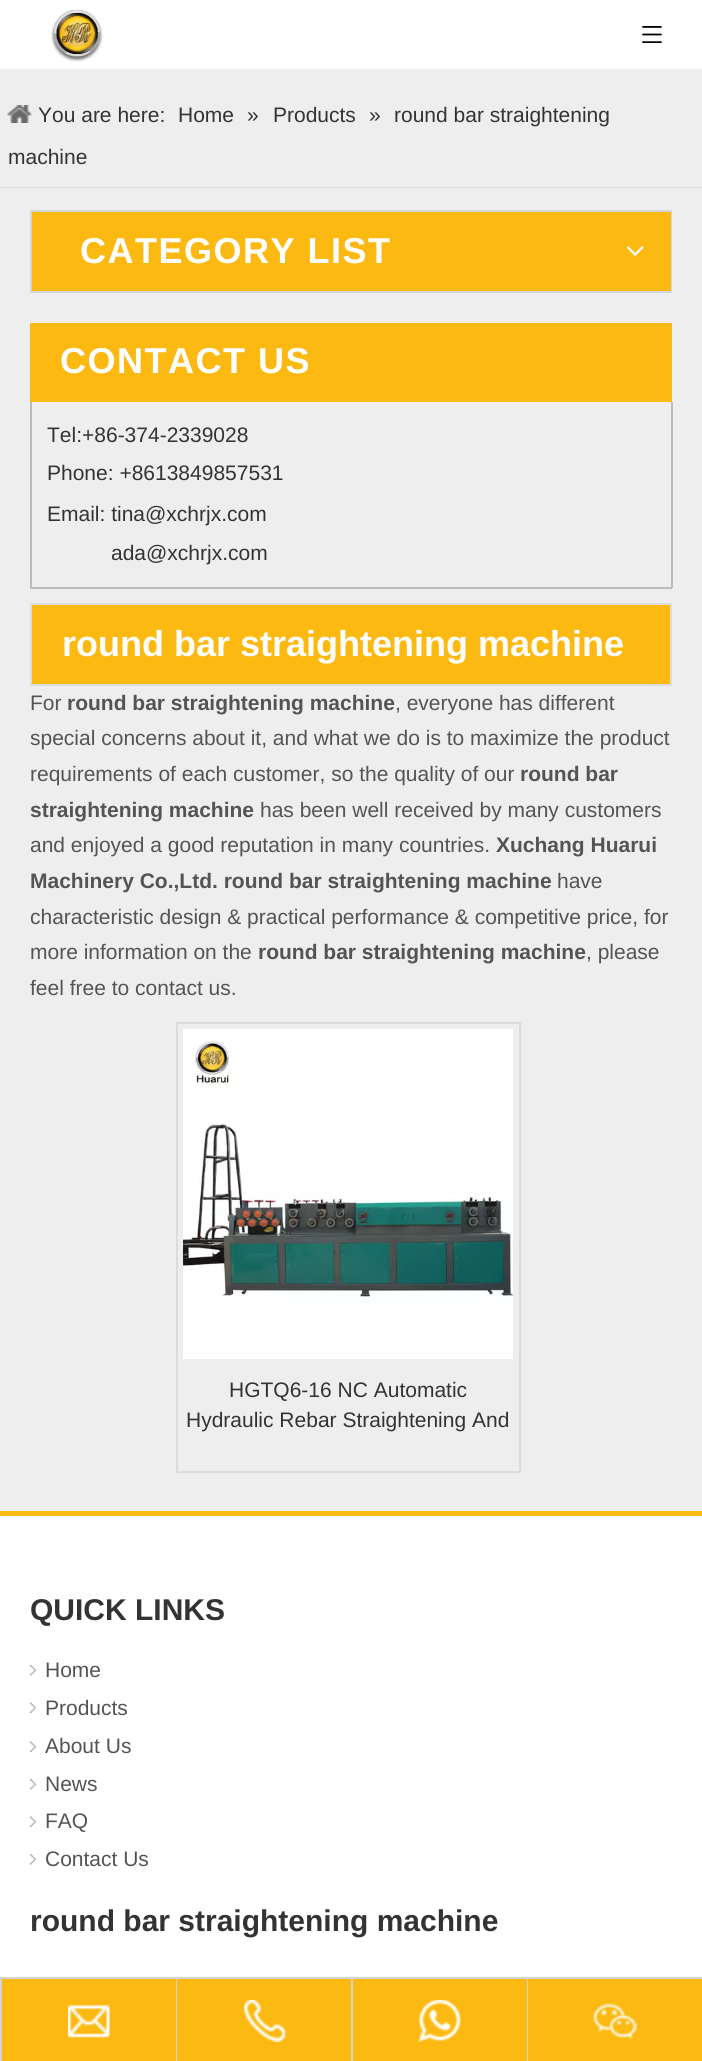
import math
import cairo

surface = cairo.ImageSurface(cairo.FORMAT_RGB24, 702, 2061)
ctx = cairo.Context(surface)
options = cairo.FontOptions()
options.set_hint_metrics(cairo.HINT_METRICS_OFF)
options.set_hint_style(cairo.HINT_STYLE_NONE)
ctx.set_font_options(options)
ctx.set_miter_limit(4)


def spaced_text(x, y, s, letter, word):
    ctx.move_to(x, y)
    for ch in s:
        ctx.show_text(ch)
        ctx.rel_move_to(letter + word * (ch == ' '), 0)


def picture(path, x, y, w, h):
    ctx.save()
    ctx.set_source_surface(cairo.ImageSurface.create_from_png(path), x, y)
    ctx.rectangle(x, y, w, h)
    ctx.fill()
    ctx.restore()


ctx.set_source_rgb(0.933, 0.933, 0.933)
ctx.paint()
ctx.set_source_rgb(1, 1, 1)
ctx.rectangle(0, 0, 702, 69)
ctx.fill()
picture("img1.png", 51, 9, 52, 53)
picture("img2.png", 642, 26, 20, 17)
ctx.set_source_rgb(0.867, 0.867, 0.867)
ctx.rectangle(0, 187, 702, 1)
ctx.fill()
picture("img3.png", 7, 105, 25, 18)
ctx.select_font_face("Liberation Sans")
ctx.set_font_size(21)
ctx.set_source_rgb(0.2, 0.2, 0.2)
ctx.move_to(38, 122)
ctx.show_text("You are here:")
ctx.move_to(178, 122)
ctx.show_text("Home")
ctx.move_to(247, 122)
ctx.show_text("»")
ctx.move_to(273, 122)
ctx.show_text("Products")
ctx.move_to(369, 122)
ctx.show_text("»")
ctx.move_to(394, 122)
ctx.show_text("round bar straightening")
ctx.move_to(8, 164)
ctx.show_text("machine")
ctx.rectangle(31, 211, 640, 81)
ctx.set_source_rgb(0.839, 0.839, 0.839)
ctx.stroke()
ctx.set_source_rgb(0.988, 0.725, 0.071)
ctx.rectangle(32, 212, 639, 79)
ctx.fill()
ctx.select_font_face("Liberation Sans", cairo.FONT_SLANT_NORMAL, cairo.FONT_WEIGHT_BOLD)
ctx.set_font_size(36)
ctx.set_source_rgb(1, 1, 1)
spaced_text(80, 263, "CATEGORY LIST", 1.5, 0)
picture("img4.png", 626, 246, 18, 10)
ctx.set_source_rgb(0.988, 0.725, 0.071)
ctx.rectangle(30, 323, 642, 79)
ctx.fill()
ctx.set_source_rgb(1, 1, 1)
spaced_text(60, 373, "CONTACT US", 1.5, 0)
ctx.set_source_rgb(0.733, 0.733, 0.733)
ctx.rectangle(671, 402, 2, 186)
ctx.fill()
ctx.rectangle(30, 587, 642, 2)
ctx.fill()
ctx.rectangle(30, 402, 2, 186)
ctx.fill()
ctx.select_font_face("Liberation Sans")
ctx.set_font_size(21)
ctx.set_source_rgb(0.2, 0.2, 0.2)
ctx.move_to(47, 442)
ctx.show_text("Tel:+86-374-2339028")
ctx.move_to(47, 480)
ctx.show_text("Phone: +8613849857531")
ctx.move_to(47, 521)
ctx.show_text("Email: tina@xchrjx.com")
ctx.move_to(111, 560)
ctx.show_text("ada@xchrjx.com")
ctx.set_source_rgb(0.988, 0.725, 0.071)
ctx.rectangle(31, 604, 640, 81)
ctx.fill_preserve()
ctx.set_source_rgb(0.867, 0.867, 0.867)
ctx.stroke()
ctx.select_font_face("Liberation Sans", cairo.FONT_SLANT_NORMAL, cairo.FONT_WEIGHT_BOLD)
ctx.set_font_size(36)
ctx.set_source_rgb(1, 1, 1)
ctx.move_to(62, 656)
ctx.show_text("round bar straightening machine")
ctx.select_font_face("Liberation Sans")
ctx.set_font_size(21)
ctx.set_source_rgb(0.329, 0.329, 0.329)
ctx.move_to(30, 710)
ctx.show_text("For")
ctx.select_font_face("Liberation Sans", cairo.FONT_SLANT_NORMAL, cairo.FONT_WEIGHT_BOLD)
ctx.move_to(67, 710)
ctx.show_text("round bar straightening machine")
ctx.select_font_face("Liberation Sans")
ctx.move_to(395, 710)
ctx.show_text(", everyone has different")
ctx.move_to(30, 745)
ctx.show_text("special concerns about it, and what we do is to maximize the product")
ctx.move_to(30, 781)
ctx.show_text("requirements of each customer, so the quality of our")
ctx.select_font_face("Liberation Sans", cairo.FONT_SLANT_NORMAL, cairo.FONT_WEIGHT_BOLD)
ctx.move_to(520, 781)
ctx.show_text("round bar")
ctx.move_to(30, 817)
ctx.show_text("straightening machine")
ctx.select_font_face("Liberation Sans")
ctx.move_to(260, 817)
ctx.show_text("has been well received by many customers")
ctx.move_to(30, 852)
ctx.show_text("and enjoyed a good reputation in many countries.")
ctx.select_font_face("Liberation Sans", cairo.FONT_SLANT_NORMAL, cairo.FONT_WEIGHT_BOLD)
ctx.move_to(496, 852)
ctx.show_text("Xuchang Huarui")
ctx.move_to(30, 888)
ctx.show_text("Machinery Co.,Ltd. round bar straightening machine")
ctx.select_font_face("Liberation Sans")
ctx.move_to(557, 888)
ctx.show_text("have")
ctx.move_to(30, 924)
ctx.show_text("characteristic design & practical performance & competitive price, for")
ctx.move_to(30, 959)
ctx.show_text("more information on the")
ctx.select_font_face("Liberation Sans", cairo.FONT_SLANT_NORMAL, cairo.FONT_WEIGHT_BOLD)
ctx.move_to(258, 959)
ctx.show_text("round bar straightening machine")
ctx.select_font_face("Liberation Sans")
ctx.move_to(586, 959)
ctx.show_text(", please")
ctx.move_to(30, 995)
ctx.show_text("feel free to contact us.")
ctx.rectangle(177, 1023, 343, 449)
ctx.set_source_rgb(0.863, 0.863, 0.863)
ctx.stroke()
picture("img5.png", 183, 1029, 330, 330)
ctx.set_source_rgb(0.2, 0.2, 0.2)
ctx.move_to(229, 1397)
ctx.show_text("HGTQ6-16 NC Automatic")
ctx.move_to(186, 1427)
ctx.show_text("Hydraulic Rebar Straightening And")
ctx.set_source_rgb(1, 1, 1)
ctx.rectangle(0, 1516, 702, 461)
ctx.fill()
ctx.set_source_rgb(0.988, 0.725, 0.071)
ctx.rectangle(0, 1511, 702, 5)
ctx.fill()
ctx.select_font_face("Liberation Sans", cairo.FONT_SLANT_NORMAL, cairo.FONT_WEIGHT_BOLD)
ctx.set_font_size(30)
ctx.set_source_rgb(0.2, 0.2, 0.2)
ctx.move_to(30, 1620)
ctx.show_text("QUICK LINKS")
picture("img6.png", 30, 1665, 6, 11)
ctx.select_font_face("Liberation Sans")
ctx.set_font_size(21)
ctx.set_source_rgb(0.329, 0.329, 0.329)
ctx.move_to(45, 1677)
ctx.show_text("Home")
picture("img7.png", 30, 1702, 6, 11)
ctx.move_to(45, 1715)
ctx.show_text("Products")
picture("img7.png", 30, 1741, 6, 11)
ctx.move_to(45, 1753)
ctx.show_text("About Us")
picture("img6.png", 30, 1779, 6, 11)
ctx.move_to(45, 1791)
ctx.show_text("News")
picture("img7.png", 30, 1816, 6, 11)
ctx.move_to(45, 1828)
ctx.show_text("FAQ")
picture("img6.png", 30, 1854, 6, 11)
ctx.move_to(45, 1866)
ctx.show_text("Contact Us")
ctx.select_font_face("Liberation Sans", cairo.FONT_SLANT_NORMAL, cairo.FONT_WEIGHT_BOLD)
ctx.set_font_size(30)
ctx.set_source_rgb(0.2, 0.2, 0.2)
ctx.move_to(30, 1931)
ctx.show_text("round bar straightening machine")
ctx.set_source_rgb(0.827, 0.827, 0.827)
ctx.rectangle(0, 1977, 702, 2)
ctx.fill()
ctx.rectangle(0, 1979, 2, 82)
ctx.fill()
ctx.set_source_rgb(0.988, 0.725, 0.071)
ctx.rectangle(2, 1979, 174, 82)
ctx.fill()
picture("img8.png", 68, 2004, 42, 34)
ctx.set_source_rgb(0.827, 0.827, 0.827)
ctx.rectangle(176, 1979, 1, 82)
ctx.fill()
ctx.set_source_rgb(0.988, 0.725, 0.071)
ctx.rectangle(177, 1979, 174, 82)
ctx.fill()
picture("img9.png", 242, 2000, 44, 42)
ctx.set_source_rgb(0.827, 0.827, 0.827)
ctx.rectangle(351, 1979, 2, 82)
ctx.fill()
ctx.set_source_rgb(0.988, 0.725, 0.071)
ctx.rectangle(353, 1979, 174, 82)
ctx.fill()
picture("img10.png", 418, 2000, 43, 42)
ctx.set_source_rgb(0.827, 0.827, 0.827)
ctx.rectangle(527, 1979, 1, 82)
ctx.fill()
ctx.set_source_rgb(0.988, 0.725, 0.071)
ctx.rectangle(528, 1979, 174, 82)
ctx.fill()
picture("img11.png", 593, 2003, 44, 37)
surface.write_to_png("page.png")
